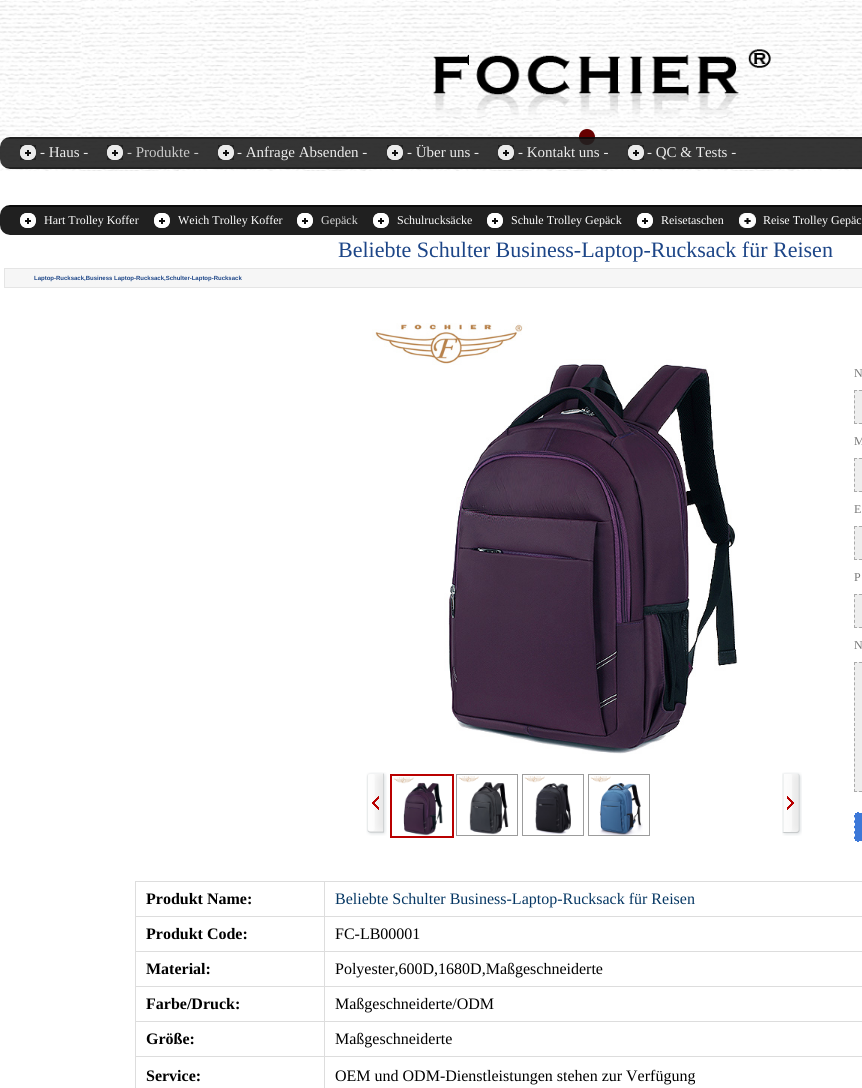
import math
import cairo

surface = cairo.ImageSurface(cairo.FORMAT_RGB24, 862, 1088)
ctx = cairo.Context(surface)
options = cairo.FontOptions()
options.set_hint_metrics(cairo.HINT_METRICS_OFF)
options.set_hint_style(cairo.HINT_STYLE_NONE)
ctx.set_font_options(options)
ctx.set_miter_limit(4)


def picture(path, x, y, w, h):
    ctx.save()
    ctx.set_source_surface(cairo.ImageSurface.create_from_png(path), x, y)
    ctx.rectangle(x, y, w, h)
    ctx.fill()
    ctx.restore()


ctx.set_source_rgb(1, 1, 1)
ctx.paint()
picture("img1.png", 0, 0, 862, 171)
ctx.set_source_rgb(0.4, 0, 0)
ctx.arc(587, 137, 7, 0, 2 * math.pi)
ctx.fill_preserve()
ctx.stroke()
picture("img2.png", 0, 137, 862, 32)
picture("img3.png", 20, 145, 16, 15)
ctx.select_font_face("Liberation Serif")
ctx.set_font_size(15)
ctx.set_source_rgb(0.922, 0.922, 0.922)
ctx.move_to(40, 157)
ctx.show_text("- Haus -")
picture("img4.png", 107, 145, 16, 15)
ctx.set_source_rgb(0.788, 0.788, 0.788)
ctx.move_to(127, 157)
ctx.show_text("- Produkte -")
picture("img5.png", 218, 145, 16, 15)
ctx.set_source_rgb(0.922, 0.922, 0.922)
ctx.move_to(237, 157)
ctx.show_text("- Anfrage Absenden -")
picture("img5.png", 387, 145, 16, 15)
ctx.move_to(407, 157)
ctx.show_text("- Über uns -")
picture("img6.png", 498, 145, 16, 15)
ctx.move_to(518, 157)
ctx.show_text("- Kontakt uns -")
picture("img5.png", 628, 145, 16, 15)
ctx.move_to(647, 157)
ctx.show_text("- QC & Tests -")
picture("img7.png", 0, 205, 862, 30)
picture("img8.png", 20, 213, 16, 15)
ctx.set_font_size(12)
ctx.set_source_rgb(1, 1, 1)
ctx.move_to(44, 224)
ctx.show_text("Hart Trolley Koffer")
picture("img8.png", 154, 213, 16, 15)
ctx.move_to(178, 224)
ctx.show_text("Weich Trolley Koffer")
picture("img8.png", 297, 213, 16, 15)
ctx.set_source_rgb(0.855, 0.855, 0.855)
ctx.move_to(321, 224)
ctx.show_text("Gepäck")
picture("img8.png", 373, 213, 16, 15)
ctx.set_source_rgb(1, 1, 1)
ctx.move_to(397, 224)
ctx.show_text("Schulrucksäcke")
picture("img8.png", 487, 213, 16, 15)
ctx.move_to(511, 224)
ctx.show_text("Schule Trolley Gepäck")
picture("img8.png", 637, 213, 16, 15)
ctx.move_to(661, 224)
ctx.show_text("Reisetaschen")
picture("img9.png", 739, 213, 17, 15)
ctx.move_to(763, 224)
ctx.show_text("Reise Trolley Gepäc")
ctx.set_font_size(22)
ctx.set_source_rgb(0.11, 0.271, 0.529)
ctx.move_to(338, 257)
ctx.show_text("Beliebte Schulter Business-Laptop-Rucksack für Reisen")
ctx.set_source_rgb(0.961, 0.961, 0.961)
ctx.rectangle(4.5, 268.5, 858, 19)
ctx.fill_preserve()
ctx.set_source_rgb(0.898, 0.898, 0.898)
ctx.set_line_width(1)
ctx.stroke()
ctx.select_font_face("Liberation Sans", cairo.FONT_SLANT_NORMAL, cairo.FONT_WEIGHT_BOLD)
ctx.set_font_size(6)
ctx.set_source_rgb(0.11, 0.271, 0.529)
ctx.move_to(34, 280)
ctx.show_text("Laptop-Rucksack,Business Laptop-Rucksack,Schulter-Laptop-Rucksack")
picture("img10.png", 372, 323, 366, 431)
picture("img11.png", 366, 772, 21, 64)
ctx.rectangle(391, 775, 62, 62)
ctx.set_source_rgb(0.725, 0, 0)
ctx.set_line_width(2)
ctx.stroke()
picture("img12.png", 393, 777, 50, 59)
ctx.rectangle(456.5, 774.5, 61, 61)
ctx.set_source_rgb(0.612, 0.612, 0.612)
ctx.set_line_width(1)
ctx.stroke()
picture("img13.png", 458, 776, 51, 59)
ctx.rectangle(522.5, 774.5, 61, 61)
ctx.stroke()
picture("img14.png", 524, 776, 47, 58)
ctx.rectangle(588.5, 774.5, 61, 61)
ctx.stroke()
picture("img15.png", 590, 776, 53, 59)
picture("img16.png", 782, 772, 20, 64)
ctx.set_source_rgb(0.867, 0.867, 0.867)
ctx.rectangle(324, 881, 538, 1)
ctx.fill()
ctx.rectangle(324, 916, 538, 1)
ctx.fill()
ctx.rectangle(324, 951, 538, 1)
ctx.fill()
ctx.rectangle(324, 986, 538, 1)
ctx.fill()
ctx.rectangle(324, 1021, 538, 1)
ctx.fill()
ctx.rectangle(324, 1056, 538, 1)
ctx.fill()
ctx.rectangle(324, 1056, 1, 32)
ctx.fill()
ctx.rectangle(135, 1056, 190, 1)
ctx.fill()
ctx.rectangle(324, 1021, 1, 36)
ctx.fill()
ctx.rectangle(135, 1021, 190, 1)
ctx.fill()
ctx.rectangle(324, 986, 1, 36)
ctx.fill()
ctx.rectangle(135, 986, 190, 1)
ctx.fill()
ctx.rectangle(324, 951, 1, 36)
ctx.fill()
ctx.rectangle(135, 951, 190, 1)
ctx.fill()
ctx.rectangle(324, 916, 1, 36)
ctx.fill()
ctx.rectangle(135, 916, 190, 1)
ctx.fill()
ctx.rectangle(324, 881, 1, 36)
ctx.fill()
ctx.rectangle(135, 881, 190, 1)
ctx.fill()
ctx.rectangle(135, 1056, 1, 32)
ctx.fill()
ctx.rectangle(135, 1021, 1, 36)
ctx.fill()
ctx.rectangle(135, 986, 1, 36)
ctx.fill()
ctx.rectangle(135, 951, 1, 36)
ctx.fill()
ctx.rectangle(135, 916, 1, 36)
ctx.fill()
ctx.rectangle(135, 881, 1, 36)
ctx.fill()
ctx.select_font_face("Liberation Serif", cairo.FONT_SLANT_NORMAL, cairo.FONT_WEIGHT_BOLD)
ctx.set_font_size(16)
ctx.set_source_rgb(0, 0, 0)
ctx.move_to(146, 904)
ctx.show_text("Produkt Name:")
ctx.select_font_face("Liberation Serif")
ctx.set_source_rgb(0.027, 0.216, 0.388)
ctx.move_to(335, 904)
ctx.show_text("Beliebte Schulter Business-Laptop-Rucksack für Reisen")
ctx.select_font_face("Liberation Serif", cairo.FONT_SLANT_NORMAL, cairo.FONT_WEIGHT_BOLD)
ctx.set_source_rgb(0, 0, 0)
ctx.move_to(146, 939)
ctx.show_text("Produkt Code:")
ctx.select_font_face("Liberation Serif")
ctx.move_to(335, 939)
ctx.show_text("FC-LB00001")
ctx.select_font_face("Liberation Serif", cairo.FONT_SLANT_NORMAL, cairo.FONT_WEIGHT_BOLD)
ctx.move_to(146, 974)
ctx.show_text("Material:")
ctx.select_font_face("Liberation Serif")
ctx.move_to(335, 974)
ctx.show_text("Polyester,600D,1680D,Maßgeschneiderte")
ctx.select_font_face("Liberation Serif", cairo.FONT_SLANT_NORMAL, cairo.FONT_WEIGHT_BOLD)
ctx.move_to(146, 1009)
ctx.show_text("Farbe/Druck:")
ctx.select_font_face("Liberation Serif")
ctx.move_to(335, 1009)
ctx.show_text("Maßgeschneiderte/ODM")
ctx.select_font_face("Liberation Serif", cairo.FONT_SLANT_NORMAL, cairo.FONT_WEIGHT_BOLD)
ctx.move_to(146, 1044)
ctx.show_text("Größe:")
ctx.select_font_face("Liberation Serif")
ctx.move_to(335, 1044)
ctx.show_text("Maßgeschneiderte")
ctx.select_font_face("Liberation Serif", cairo.FONT_SLANT_NORMAL, cairo.FONT_WEIGHT_BOLD)
ctx.move_to(146, 1081)
ctx.show_text("Service:")
ctx.select_font_face("Liberation Serif")
ctx.move_to(335, 1081)
ctx.show_text("OEM und ODM-Dienstleistungen stehen zur Verfügung")
ctx.set_font_size(12)
ctx.set_source_rgb(0.467, 0.467, 0.467)
ctx.move_to(854, 377)
ctx.show_text("N")
ctx.set_source_rgb(0.933, 0.933, 0.933)
ctx.rectangle(854, 390, 8, 34)
ctx.fill()
ctx.new_path()
ctx.move_to(854, 390.5)
ctx.line_to(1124, 390.5)
ctx.move_to(854, 423.5)
ctx.line_to(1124, 423.5)
ctx.set_source_rgb(0.667, 0.667, 0.667)
ctx.set_dash([3, 2.04])
ctx.stroke()
ctx.new_path()
ctx.move_to(854.5, 390)
ctx.line_to(854.5, 424)
ctx.set_dash([3, 2.17])
ctx.stroke()
ctx.set_source_rgb(0.467, 0.467, 0.467)
ctx.move_to(854, 445)
ctx.show_text("M")
ctx.set_source_rgb(0.933, 0.933, 0.933)
ctx.rectangle(854, 458, 8, 34)
ctx.fill()
ctx.new_path()
ctx.move_to(854, 458.5)
ctx.line_to(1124, 458.5)
ctx.move_to(854, 491.5)
ctx.line_to(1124, 491.5)
ctx.set_source_rgb(0.667, 0.667, 0.667)
ctx.set_dash([3, 2.04])
ctx.stroke()
ctx.new_path()
ctx.move_to(854.5, 458)
ctx.line_to(854.5, 492)
ctx.set_dash([3, 2.17])
ctx.stroke()
ctx.set_source_rgb(0.467, 0.467, 0.467)
ctx.move_to(854, 513)
ctx.show_text("E")
ctx.set_source_rgb(0.933, 0.933, 0.933)
ctx.rectangle(854, 526, 8, 34)
ctx.fill()
ctx.new_path()
ctx.move_to(854, 526.5)
ctx.line_to(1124, 526.5)
ctx.move_to(854, 559.5)
ctx.line_to(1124, 559.5)
ctx.set_source_rgb(0.667, 0.667, 0.667)
ctx.set_dash([3, 2.04])
ctx.stroke()
ctx.new_path()
ctx.move_to(854.5, 526)
ctx.line_to(854.5, 560)
ctx.set_dash([3, 2.17])
ctx.stroke()
ctx.set_source_rgb(0.467, 0.467, 0.467)
ctx.move_to(854, 581)
ctx.show_text("P")
ctx.set_source_rgb(0.933, 0.933, 0.933)
ctx.rectangle(854, 594, 8, 34)
ctx.fill()
ctx.new_path()
ctx.move_to(854, 594.5)
ctx.line_to(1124, 594.5)
ctx.move_to(854, 627.5)
ctx.line_to(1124, 627.5)
ctx.set_source_rgb(0.667, 0.667, 0.667)
ctx.set_dash([3, 2.04])
ctx.stroke()
ctx.new_path()
ctx.move_to(854.5, 594)
ctx.line_to(854.5, 628)
ctx.set_dash([3, 2.17])
ctx.stroke()
ctx.set_source_rgb(0.467, 0.467, 0.467)
ctx.move_to(854, 649)
ctx.show_text("N")
ctx.set_source_rgb(0.933, 0.933, 0.933)
ctx.rectangle(854, 662, 8, 130)
ctx.fill()
ctx.new_path()
ctx.move_to(854, 662.5)
ctx.line_to(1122, 662.5)
ctx.set_source_rgb(0.667, 0.667, 0.667)
ctx.set_dash([3, 2])
ctx.stroke()
ctx.new_path()
ctx.move_to(854, 791.5)
ctx.line_to(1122, 791.5)
ctx.stroke()
ctx.new_path()
ctx.move_to(854.5, 662)
ctx.line_to(854.5, 792)
ctx.set_dash([3, 2.08])
ctx.stroke()
ctx.set_source_rgb(0.235, 0.471, 0.847)
ctx.rectangle(854, 812, 8, 30)
ctx.fill()
ctx.new_path()
ctx.move_to(854, 812.5)
ctx.line_to(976, 812.5)
ctx.move_to(854, 841.5)
ctx.line_to(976, 841.5)
ctx.set_source_rgb(1, 1, 1)
ctx.set_dash([3, 1.96])
ctx.stroke()
ctx.new_path()
ctx.move_to(854.5, 812)
ctx.line_to(854.5, 842)
ctx.set_dash([3, 2.4])
ctx.stroke()
surface.write_to_png("page.png")
